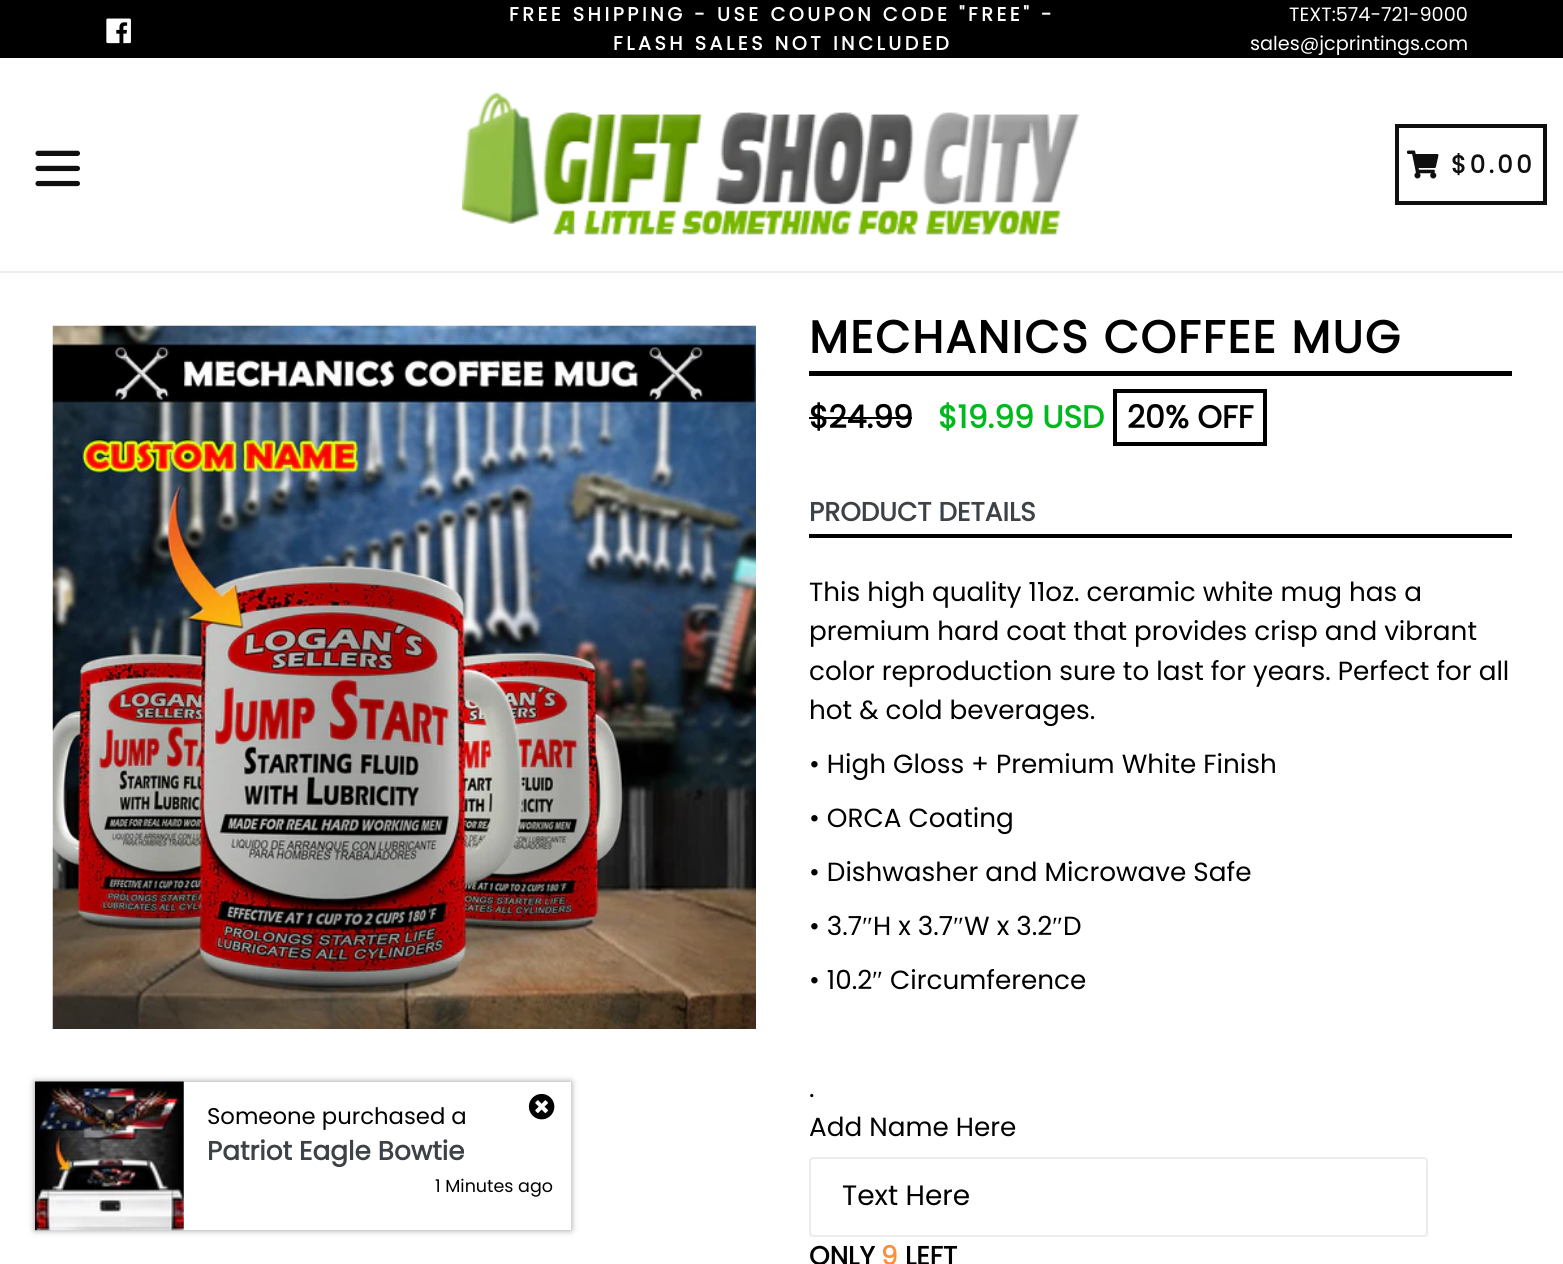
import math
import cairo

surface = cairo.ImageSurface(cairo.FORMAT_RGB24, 1563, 1264)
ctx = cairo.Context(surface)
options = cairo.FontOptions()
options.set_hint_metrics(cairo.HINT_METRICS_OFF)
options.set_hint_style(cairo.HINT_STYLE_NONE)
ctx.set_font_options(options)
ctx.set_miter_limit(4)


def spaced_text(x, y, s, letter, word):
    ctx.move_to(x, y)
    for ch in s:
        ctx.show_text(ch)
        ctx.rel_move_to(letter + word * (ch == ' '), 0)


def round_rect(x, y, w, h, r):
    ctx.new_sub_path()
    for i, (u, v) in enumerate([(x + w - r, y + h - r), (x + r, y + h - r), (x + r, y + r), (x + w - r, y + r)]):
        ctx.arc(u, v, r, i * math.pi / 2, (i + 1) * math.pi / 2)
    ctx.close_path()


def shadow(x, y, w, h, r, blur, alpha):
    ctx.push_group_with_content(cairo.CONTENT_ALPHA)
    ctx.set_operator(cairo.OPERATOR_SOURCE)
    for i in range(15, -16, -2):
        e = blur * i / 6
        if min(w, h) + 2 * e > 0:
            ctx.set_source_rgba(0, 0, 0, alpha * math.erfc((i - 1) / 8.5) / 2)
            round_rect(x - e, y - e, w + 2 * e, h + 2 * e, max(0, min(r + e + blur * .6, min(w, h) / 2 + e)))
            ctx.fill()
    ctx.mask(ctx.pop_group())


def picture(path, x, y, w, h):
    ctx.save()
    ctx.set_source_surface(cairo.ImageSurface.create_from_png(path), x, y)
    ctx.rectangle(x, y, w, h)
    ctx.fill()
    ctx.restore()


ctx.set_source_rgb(1, 1, 1)
ctx.paint()
ctx.set_source_rgb(0, 0, 0)
ctx.rectangle(0, 0, 1563, 58)
ctx.fill()
picture("img1.png", 106, 18, 25, 26)
ctx.select_font_face("Poppins", cairo.FONT_SLANT_NORMAL, cairo.FONT_WEIGHT_BOLD)
ctx.set_font_size(19.25)
ctx.set_source_rgb(1, 1, 1)
spaced_text(509, 21, "FREE SHIPPING - USE COUPON CODE \"FREE\" -", 3.5, 0)
spaced_text(613, 50, "FLASH SALES NOT INCLUDED", 3.5, 0)
ctx.select_font_face("Poppins")
ctx.move_to(1289, 21)
ctx.show_text("TEXT:574-721-9000")
ctx.move_to(1250, 50)
ctx.show_text("sales@jcprintings.com")
ctx.set_source_rgb(0.922, 0.922, 0.922)
ctx.rectangle(0, 271, 1563, 2)
ctx.fill()
picture("img2.png", 35, 150, 45, 37)
picture("img3.png", 462, 92, 618, 143)
ctx.rectangle(1397, 126, 148, 77)
ctx.set_source_rgb(0.059, 0.059, 0.059)
ctx.set_line_width(4)
ctx.stroke()
picture("img4.png", 1407, 150, 32, 29)
ctx.select_font_face("Poppins", cairo.FONT_SLANT_NORMAL, cairo.FONT_WEIGHT_BOLD)
ctx.set_font_size(24.5)
spaced_text(1451, 173, "$0.00", 3.5, 0)
ctx.set_source_rgb(0, 0, 0)
shadow(35, 1082, 536, 148, 0, 3.5, 0.4)
ctx.set_source_rgb(1, 1, 1)
ctx.rectangle(183, 1082, 388, 148)
ctx.fill()
picture("img5.png", 35, 1081, 149, 150)
picture("img6.png", 528, 1093, 27, 27)
ctx.select_font_face("Poppins")
ctx.set_font_size(22.75)
ctx.set_source_rgb(0, 0, 0)
ctx.move_to(207, 1124)
ctx.show_text("Someone purchased a")
ctx.select_font_face("Poppins", cairo.FONT_SLANT_NORMAL, cairo.FONT_WEIGHT_BOLD)
ctx.set_font_size(26.25)
ctx.set_source_rgb(0.239, 0.259, 0.275)
ctx.move_to(207, 1160)
ctx.show_text("Patriot Eagle Bowtie")
ctx.select_font_face("Poppins")
ctx.set_font_size(17.5)
ctx.set_source_rgb(0, 0, 0)
ctx.move_to(435, 1192)
ctx.show_text("1 Minutes ago")
picture("img7.png", 52, 325, 704, 704)
ctx.rectangle(809, 371, 703, 5)
ctx.fill()
ctx.select_font_face("Poppins", cairo.FONT_SLANT_NORMAL, cairo.FONT_WEIGHT_BOLD)
ctx.set_font_size(45.5)
spaced_text(809, 353, "MECHANICS COFFEE MUG", 1.75, 0)
ctx.set_font_size(31.5)
ctx.move_to(809, 428)
ctx.show_text("$24.99")
ctx.rectangle(809, 417, 103, 2)
ctx.fill()
ctx.set_source_rgb(0, 0.729, 0.114)
ctx.move_to(938, 428)
ctx.show_text("$19.99 USD")
ctx.rectangle(1115, 391, 150, 53)
ctx.set_source_rgb(0, 0, 0)
ctx.stroke()
ctx.move_to(1127, 428)
ctx.show_text("20% OFF")
ctx.rectangle(809, 534, 703, 4)
ctx.fill()
ctx.set_font_size(26.25)
ctx.set_source_rgb(0.239, 0.259, 0.275)
ctx.move_to(809, 521)
ctx.show_text("PRODUCT DETAILS")
ctx.select_font_face("Poppins")
ctx.set_source_rgb(0, 0, 0)
ctx.move_to(809, 601)
ctx.show_text("This high quality 11oz. ceramic white mug has a")
ctx.move_to(809, 640)
ctx.show_text("premium hard coat that provides crisp and vibrant")
ctx.move_to(809, 680)
ctx.show_text("color reproduction sure to last for years. Perfect for all")
ctx.move_to(809, 719)
ctx.show_text("hot & cold beverages.")
ctx.move_to(809, 773)
ctx.show_text("• High Gloss + Premium White Finish")
ctx.move_to(809, 827)
ctx.show_text("• ORCA Coating")
ctx.move_to(809, 881)
ctx.show_text("• Dishwasher and Microwave Safe")
ctx.move_to(809, 935)
ctx.show_text("• 3.7")
ctx.select_font_face("Liberation Serif")
ctx.move_to(862, 935)
ctx.show_text("″")
ctx.select_font_face("Poppins")
ctx.move_to(873, 935)
ctx.show_text("H x 3.7")
ctx.select_font_face("Liberation Serif")
ctx.move_to(953, 935)
ctx.show_text("″")
ctx.select_font_face("Poppins")
ctx.move_to(964, 935)
ctx.show_text("W x 3.2")
ctx.select_font_face("Liberation Serif")
ctx.move_to(1052, 935)
ctx.show_text("″")
ctx.select_font_face("Poppins")
ctx.move_to(1063, 935)
ctx.show_text("D")
ctx.move_to(809, 989)
ctx.show_text("• 10.2")
ctx.select_font_face("Liberation Serif")
ctx.move_to(872, 989)
ctx.show_text("″")
ctx.select_font_face("Poppins")
ctx.move_to(890, 989)
ctx.show_text("Circumference")
ctx.move_to(809, 1097)
ctx.show_text(".")
ctx.move_to(809, 1136)
ctx.show_text("Add Name Here")
round_rect(810, 1158, 617, 78, 3)
ctx.set_source_rgb(0.922, 0.922, 0.922)
ctx.set_line_width(2)
ctx.stroke()
ctx.set_font_size(28)
ctx.set_source_rgb(0, 0, 0)
ctx.move_to(842, 1205)
ctx.show_text("Text Here")
ctx.select_font_face("Poppins", cairo.FONT_SLANT_NORMAL, cairo.FONT_WEIGHT_BOLD)
ctx.set_font_size(26.25)
ctx.move_to(809, 1265)
ctx.show_text("ONLY")
ctx.set_source_rgb(1, 0.557, 0.231)
ctx.move_to(881, 1265)
ctx.show_text("9")
ctx.set_source_rgb(0, 0, 0)
ctx.move_to(905, 1265)
ctx.show_text("LEFT")
surface.write_to_png("page.png")
